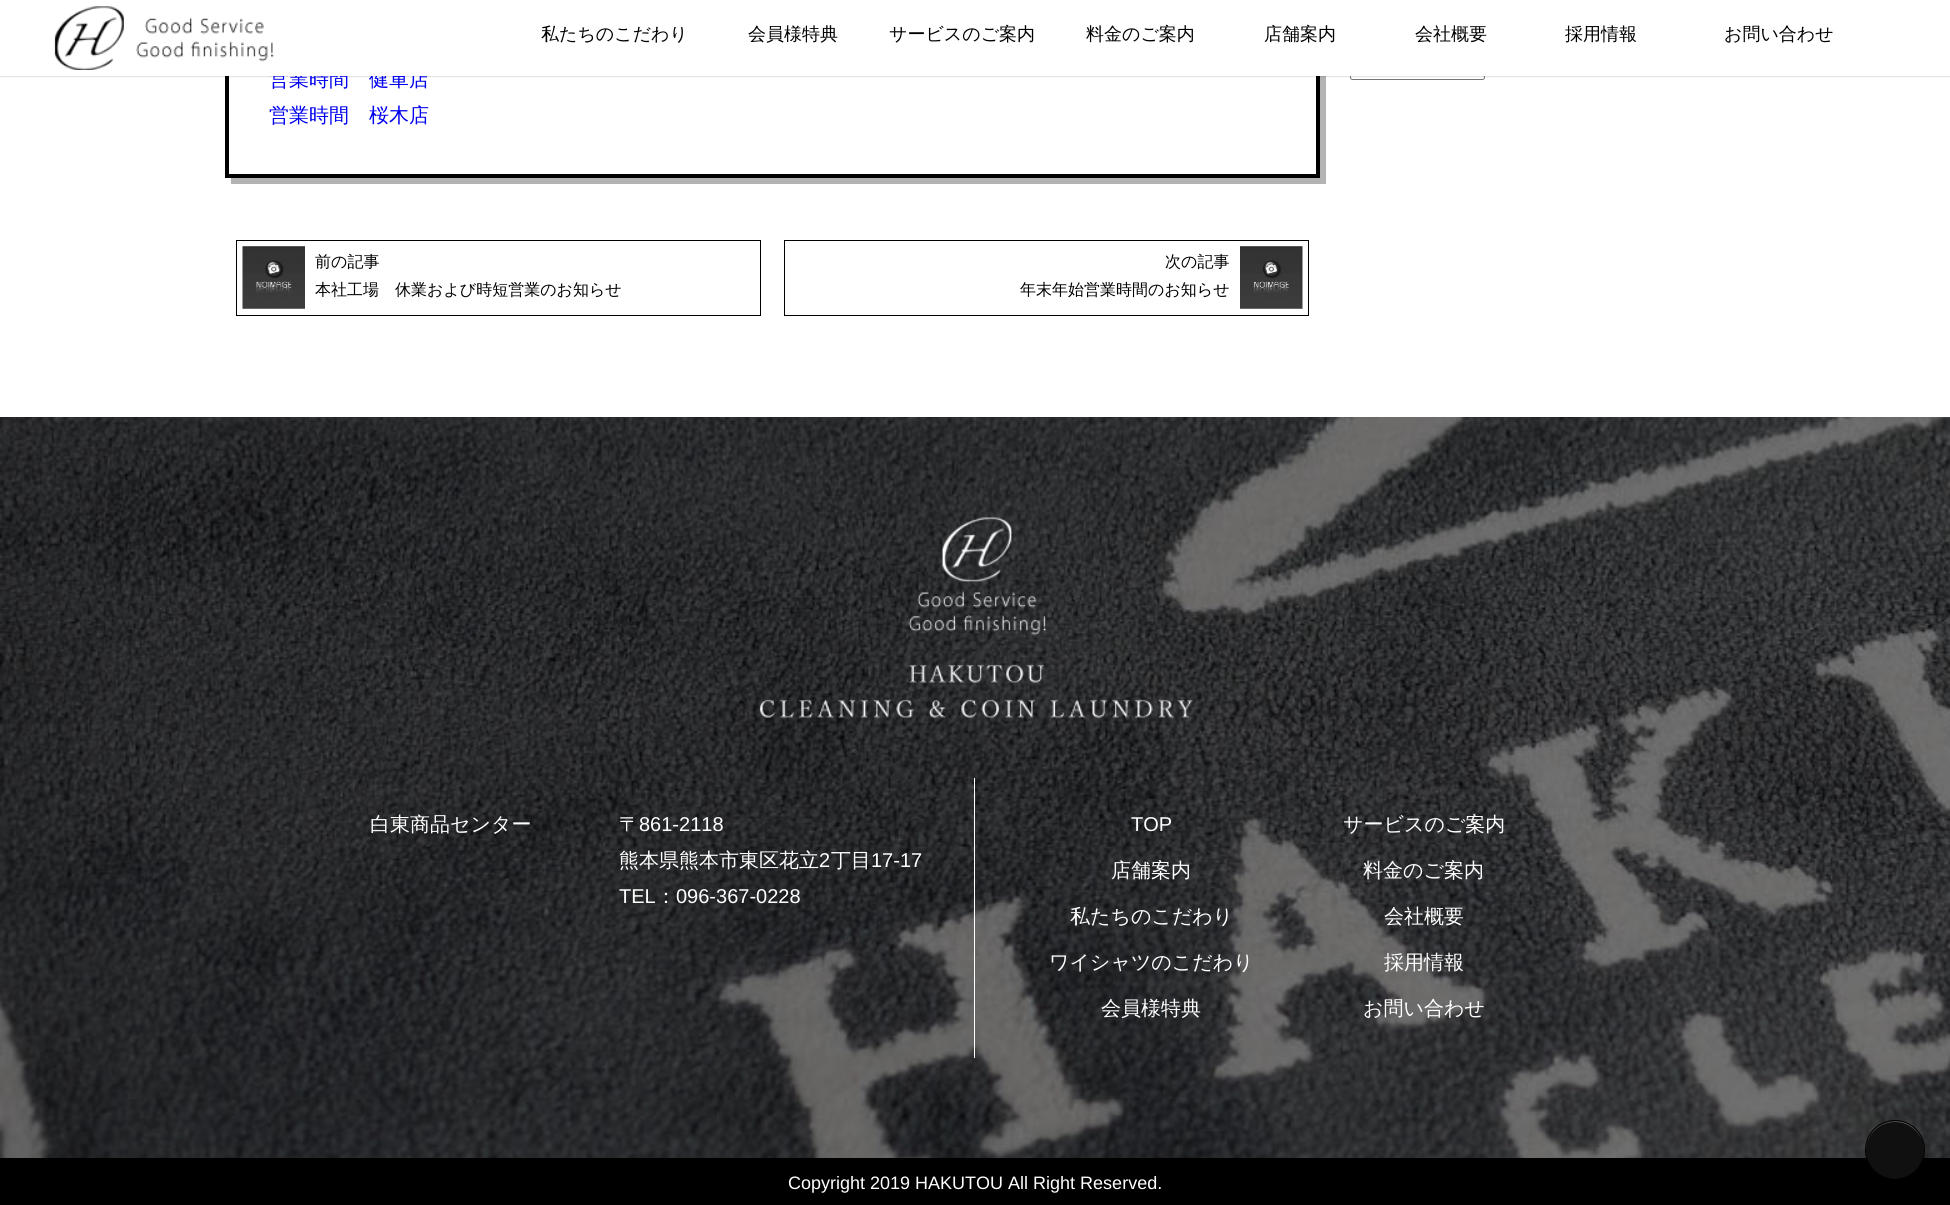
import math
import cairo

surface = cairo.ImageSurface(cairo.FORMAT_RGB24, 1950, 1205)
ctx = cairo.Context(surface)
options = cairo.FontOptions()
options.set_hint_metrics(cairo.HINT_METRICS_OFF)
options.set_hint_style(cairo.HINT_STYLE_NONE)
ctx.set_font_options(options)
ctx.set_miter_limit(4)


def round_rect(x, y, w, h, r):
    ctx.new_sub_path()
    for i, (u, v) in enumerate([(x + w - r, y + h - r), (x + r, y + h - r), (x + r, y + r), (x + w - r, y + r)]):
        ctx.arc(u, v, r, i * math.pi / 2, (i + 1) * math.pi / 2)
    ctx.close_path()


def shadow(x, y, w, h, r, blur, alpha):
    ctx.push_group_with_content(cairo.CONTENT_ALPHA)
    ctx.set_operator(cairo.OPERATOR_SOURCE)
    for i in range(15, -16, -2):
        e = blur * i / 6
        if min(w, h) + 2 * e > 0:
            ctx.set_source_rgba(0, 0, 0, alpha * math.erfc((i - 1) / 8.5) / 2)
            round_rect(x - e, y - e, w + 2 * e, h + 2 * e, max(0, min(r + e + blur * .6, min(w, h) / 2 + e)))
            ctx.fill()
    ctx.mask(ctx.pop_group())


def picture(path, x, y, w, h):
    ctx.save()
    ctx.set_source_surface(cairo.ImageSurface.create_from_png(path), x, y)
    ctx.rectangle(x, y, w, h)
    ctx.fill()
    ctx.restore()


ctx.set_source_rgb(1, 1, 1)
ctx.paint()
ctx.set_source_rgb(0.702, 0.702, 0.702)
ctx.new_path()
ctx.move_to(231, 178)
ctx.line_to(231, 184)
ctx.line_to(1326, 184)
ctx.line_to(1326, -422)
ctx.line_to(1320, -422)
ctx.line_to(1320, 178)
ctx.close_path()
ctx.fill()
ctx.rectangle(227, -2, 1091, 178)
ctx.set_source_rgb(0, 0, 0)
ctx.set_line_width(4)
ctx.stroke()
round_rect(1350.5, 54.5, 134, 25, 2)
ctx.set_source_rgb(0.463, 0.463, 0.463)
ctx.set_line_width(1)
ctx.stroke()
ctx.set_source_rgb(0, 0, 0)
shadow(0, 0, 1950, 76, 0, 1, 0.3)
ctx.select_font_face("WenQuanYi Zen Hei Medium")
ctx.set_font_size(20)
ctx.set_source_rgb(0, 0, 0.933)
ctx.move_to(269, 86)
ctx.show_text("営業時間　健軍店")
ctx.set_source_rgb(1, 1, 1)
ctx.rectangle(0, 0, 1950, 76)
ctx.fill()
picture("img1.png", 54, 6, 220, 64)
ctx.set_font_size(18)
ctx.set_source_rgb(0, 0, 0)
ctx.move_to(541, 40)
ctx.show_text("私たちのこだわり")
ctx.move_to(748, 40)
ctx.show_text("会員様特典")
ctx.move_to(889, 40)
ctx.show_text("サービスのご案内")
ctx.move_to(1086, 40)
ctx.show_text("料金のご案内")
ctx.move_to(1264, 40)
ctx.show_text("店舗案内")
ctx.move_to(1415, 40)
ctx.show_text("会社概要")
ctx.move_to(1565, 40)
ctx.show_text("採用情報")
ctx.move_to(1724, 40)
ctx.show_text("お問い合わせ")
ctx.set_font_size(20)
ctx.set_source_rgb(0, 0, 0.933)
ctx.move_to(269, 122)
ctx.show_text("営業時間　桜木店")
ctx.rectangle(236.5, 240.5, 524, 75)
ctx.set_source_rgb(0, 0, 0)
ctx.stroke()
picture("img2.png", 242, 246, 63, 63)
ctx.set_font_size(16)
ctx.move_to(315, 267)
ctx.show_text("前の記事")
ctx.move_to(315, 295)
ctx.show_text("本社工場　休業および時短営業のお知らせ")
ctx.rectangle(784.5, 240.5, 524, 75)
ctx.stroke()
ctx.move_to(1165, 267)
ctx.show_text("次の記事")
picture("img3.png", 1240, 246, 63, 63)
ctx.move_to(1020, 295)
ctx.show_text("年末年始営業時間のお知らせ")
picture("img4.png", 0, 417, 1950, 741)
picture("img5.png", 759, 517, 434, 201)
ctx.set_source_rgb(1, 1, 1)
ctx.rectangle(974, 778, 1, 280)
ctx.fill()
ctx.set_font_size(20)
ctx.move_to(370, 831)
ctx.show_text("白東商品センター")
ctx.move_to(619, 831)
ctx.show_text("〒")
ctx.select_font_face("Liberation Sans")
ctx.move_to(639, 831)
ctx.show_text("861-2118")
ctx.select_font_face("WenQuanYi Zen Hei Medium")
ctx.move_to(619, 867)
ctx.show_text("熊本県熊本市東区花立")
ctx.select_font_face("Liberation Sans")
ctx.move_to(819, 867)
ctx.show_text("2")
ctx.select_font_face("WenQuanYi Zen Hei Medium")
ctx.move_to(831, 867)
ctx.show_text("丁目")
ctx.select_font_face("Liberation Sans")
ctx.move_to(871, 867)
ctx.show_text("17-17")
ctx.move_to(619, 903)
ctx.show_text("TEL")
ctx.select_font_face("WenQuanYi Zen Hei Medium")
ctx.move_to(656, 903)
ctx.show_text("：")
ctx.select_font_face("Liberation Sans")
ctx.move_to(676, 903)
ctx.show_text("096-367-0228")
ctx.move_to(1131, 831)
ctx.show_text("TOP")
ctx.select_font_face("WenQuanYi Zen Hei Medium")
ctx.move_to(1111, 877)
ctx.show_text("店舗案内")
ctx.move_to(1070, 923)
ctx.show_text("私たちのこだわり")
ctx.move_to(1049, 969)
ctx.show_text("ワイシャツのこだわり")
ctx.move_to(1101, 1015)
ctx.show_text("会員様特典")
ctx.move_to(1343, 831)
ctx.show_text("サービスのご案内")
ctx.move_to(1363, 877)
ctx.show_text("料金のご案内")
ctx.move_to(1384, 923)
ctx.show_text("会社概要")
ctx.move_to(1384, 969)
ctx.show_text("採用情報")
ctx.move_to(1363, 1015)
ctx.show_text("お問い合わせ")
ctx.set_source_rgb(0, 0, 0)
ctx.rectangle(0, 1158, 1950, 47)
ctx.fill()
ctx.select_font_face("Liberation Sans")
ctx.set_font_size(18)
ctx.set_source_rgb(1, 1, 1)
ctx.move_to(788, 1189)
ctx.show_text("Copyright 2019 HAKUTOU All Right Reserved.")
ctx.set_source_rgba(0.067, 0.067, 0.067, 0.99)
ctx.new_path()
ctx.arc(1895, 1150, 29, 0, 2 * math.pi)
ctx.fill()
ctx.set_source_rgba(1, 1, 1, 0.4)
ctx.new_path()
ctx.move_to(1895, 1122)
ctx.curve_to(1911, 1122, 1924, 1135, 1924, 1151)
ctx.curve_to(1924, 1145, 1922, 1139, 1919, 1134)
ctx.curve_to(1903, 1110, 1866, 1122, 1866, 1151)
ctx.curve_to(1866, 1135, 1879, 1122, 1895, 1122)
ctx.close_path()
ctx.fill()
ctx.arc(1895, 1150, 28.5, 0, 2 * math.pi)
ctx.set_source_rgba(0, 0, 0, 0.2)
ctx.stroke()
ctx.arc(1895, 1150, 29.5, 0, 2 * math.pi)
ctx.set_source_rgba(0, 0, 0, 0.99)
ctx.stroke()
surface.write_to_png("page.png")
